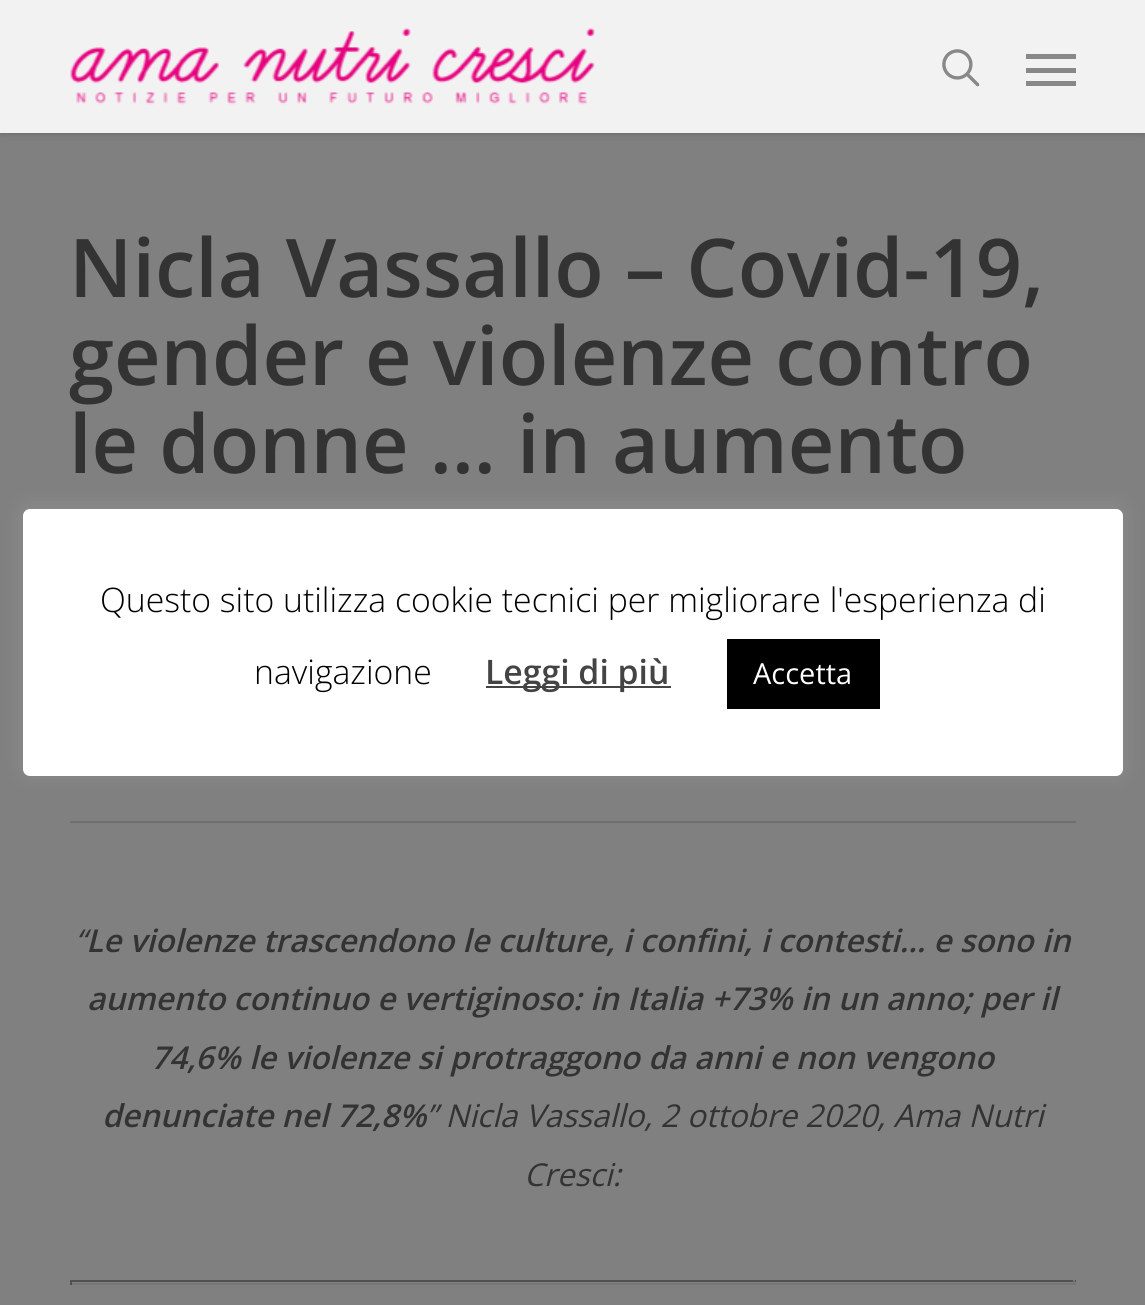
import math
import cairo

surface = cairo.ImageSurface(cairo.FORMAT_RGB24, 1145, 1305)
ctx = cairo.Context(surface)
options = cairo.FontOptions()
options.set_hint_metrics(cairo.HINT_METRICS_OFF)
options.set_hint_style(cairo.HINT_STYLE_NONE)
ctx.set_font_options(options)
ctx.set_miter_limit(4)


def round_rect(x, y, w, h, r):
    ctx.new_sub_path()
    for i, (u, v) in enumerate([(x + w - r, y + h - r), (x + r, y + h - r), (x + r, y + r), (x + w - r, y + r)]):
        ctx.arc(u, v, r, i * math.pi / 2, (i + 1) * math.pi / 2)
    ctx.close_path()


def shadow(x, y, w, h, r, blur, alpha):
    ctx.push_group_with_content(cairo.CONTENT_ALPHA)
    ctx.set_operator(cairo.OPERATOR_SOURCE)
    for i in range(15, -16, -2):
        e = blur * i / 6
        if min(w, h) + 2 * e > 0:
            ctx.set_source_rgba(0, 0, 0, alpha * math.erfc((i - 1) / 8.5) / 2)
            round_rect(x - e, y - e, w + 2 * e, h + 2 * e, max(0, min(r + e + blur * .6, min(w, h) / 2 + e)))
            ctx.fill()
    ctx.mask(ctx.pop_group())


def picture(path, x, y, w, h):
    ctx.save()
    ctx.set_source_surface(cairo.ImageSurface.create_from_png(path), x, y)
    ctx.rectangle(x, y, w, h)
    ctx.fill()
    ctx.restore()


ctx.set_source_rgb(0.502, 0.502, 0.502)
ctx.paint()
ctx.set_source_rgb(0, 0, 0)
shadow(0, 0, 1145, 133, 0, 3.5, 0.22)
ctx.set_source_rgb(0.949, 0.949, 0.949)
ctx.rectangle(0, 0, 1145, 133)
ctx.fill()
picture("img1.png", 70, 28, 525, 77)
picture("img2.png", 942, 49, 38, 38)
ctx.set_source_rgb(0.533, 0.533, 0.533)
ctx.rectangle(1026, 54, 50, 5)
ctx.fill()
ctx.rectangle(1026, 81, 50, 5)
ctx.fill()
ctx.rectangle(1026, 68, 50, 5)
ctx.fill()
ctx.set_source_rgb(0.435, 0.435, 0.435)
ctx.rectangle(70, 821, 1006, 2)
ctx.fill()
ctx.select_font_face("Open Sans SemiBold")
ctx.set_font_size(81)
ctx.set_source_rgb(0.2, 0.2, 0.2)
ctx.move_to(69, 297)
ctx.show_text("Nicla Vassallo – Covid-19,")
ctx.move_to(69, 385)
ctx.show_text("gender e violenze contro")
ctx.move_to(69, 473)
ctx.show_text("le donne … in aumento")
ctx.select_font_face("Open Sans", cairo.FONT_SLANT_ITALIC)
ctx.set_font_size(31.5)
ctx.move_to(75, 952)
ctx.show_text("“")
ctx.select_font_face("Open Sans SemiBold", cairo.FONT_SLANT_ITALIC)
ctx.move_to(86, 952)
ctx.show_text("Le violenze trascendono le culture, i confini, i contesti… e sono in")
ctx.move_to(87, 1010)
ctx.show_text("aumento continuo e vertiginoso: in Italia +73% in un anno; per il")
ctx.move_to(151, 1069)
ctx.show_text("74,6% le violenze si protraggono da anni e non vengono")
ctx.move_to(102, 1127)
ctx.show_text("denunciate nel 72,8%")
ctx.select_font_face("Open Sans", cairo.FONT_SLANT_ITALIC)
ctx.move_to(426, 1127)
ctx.show_text("” Nicla Vassallo, 2 ottobre 2020, Ama Nutri")
ctx.move_to(524, 1186)
ctx.show_text("Cresci:")
ctx.set_source_rgb(0.314, 0.314, 0.314)
ctx.rectangle(70, 1280, 1006, 2)
ctx.fill()
ctx.set_source_rgb(0.467, 0.467, 0.467)
ctx.rectangle(1073, 1280, 2, 5)
ctx.fill()
ctx.rectangle(70, 1283, 1006, 2)
ctx.fill()
ctx.set_source_rgb(0.314, 0.314, 0.314)
ctx.rectangle(70, 1280, 2, 5)
ctx.fill()
ctx.set_source_rgb(0.675, 0.671, 0.671)
shadow(23, 506, 1100, 268, 7, 11, 0.3)
ctx.set_source_rgb(1, 1, 1)
round_rect(23, 509, 1100, 267, 7)
ctx.fill()
ctx.select_font_face("Open Sans Light")
ctx.set_font_size(33.75)
ctx.set_source_rgb(0, 0, 0)
ctx.move_to(100, 612)
ctx.show_text("Questo sito utilizza cookie tecnici per migliorare l'esperienza di")
ctx.move_to(254, 684)
ctx.show_text("navigazione")
ctx.set_source_rgb(0.267, 0.267, 0.267)
ctx.rectangle(486, 686, 185, 2)
ctx.fill()
ctx.select_font_face("Open Sans SemiBold")
ctx.move_to(485, 684)
ctx.show_text("Leggi di più")
ctx.set_source_rgb(0, 0, 0)
ctx.rectangle(727, 639, 153, 70)
ctx.fill()
ctx.select_font_face("Open Sans")
ctx.set_font_size(29)
ctx.set_source_rgb(1, 1, 1)
ctx.move_to(753, 684)
ctx.show_text("Accetta")
surface.write_to_png("page.png")
